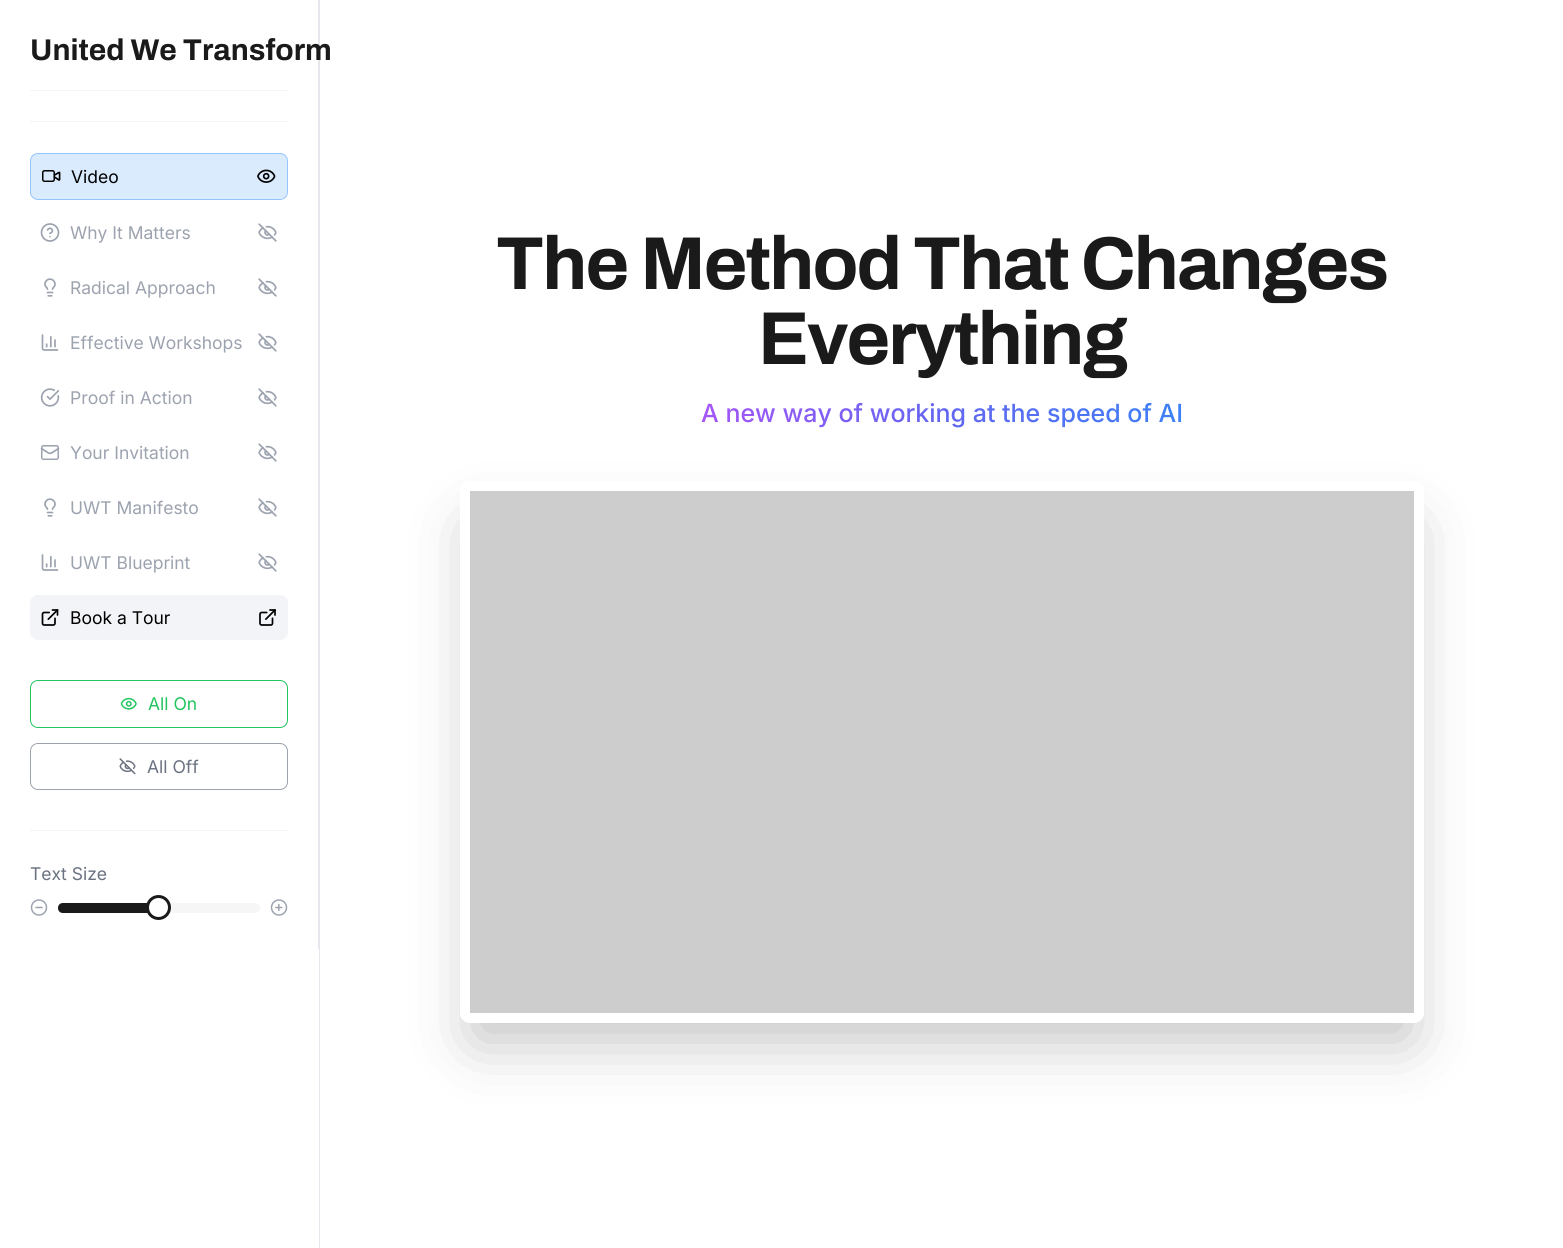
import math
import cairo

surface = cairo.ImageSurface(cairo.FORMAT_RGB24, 1563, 1248)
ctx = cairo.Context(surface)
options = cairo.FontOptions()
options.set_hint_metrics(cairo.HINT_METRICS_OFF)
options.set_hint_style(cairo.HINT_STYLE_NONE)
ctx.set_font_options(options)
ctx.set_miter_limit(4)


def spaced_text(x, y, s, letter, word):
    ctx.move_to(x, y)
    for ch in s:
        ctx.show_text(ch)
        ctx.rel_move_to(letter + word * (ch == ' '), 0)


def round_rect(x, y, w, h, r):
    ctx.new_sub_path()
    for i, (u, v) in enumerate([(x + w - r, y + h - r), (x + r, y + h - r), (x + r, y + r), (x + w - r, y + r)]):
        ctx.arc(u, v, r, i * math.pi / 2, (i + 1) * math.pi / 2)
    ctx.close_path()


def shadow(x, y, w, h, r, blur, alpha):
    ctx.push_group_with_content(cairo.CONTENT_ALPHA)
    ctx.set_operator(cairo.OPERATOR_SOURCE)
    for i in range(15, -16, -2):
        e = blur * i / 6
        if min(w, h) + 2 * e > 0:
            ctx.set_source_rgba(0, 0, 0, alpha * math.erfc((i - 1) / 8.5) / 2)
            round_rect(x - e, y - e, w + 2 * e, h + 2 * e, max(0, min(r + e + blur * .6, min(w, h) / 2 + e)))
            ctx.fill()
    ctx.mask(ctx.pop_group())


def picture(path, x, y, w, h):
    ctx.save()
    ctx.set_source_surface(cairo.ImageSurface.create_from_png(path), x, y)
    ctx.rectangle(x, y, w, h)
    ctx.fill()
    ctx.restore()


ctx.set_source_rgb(1, 1, 1)
ctx.paint()
ctx.set_source_rgb(0.898, 0.906, 0.922)
ctx.rectangle(319, 0, 1, 1248)
ctx.fill()
ctx.rectangle(318, 0, 1, 949)
ctx.fill()
ctx.select_font_face("Archivo", cairo.FONT_SLANT_NORMAL, cairo.FONT_WEIGHT_BOLD)
ctx.set_font_size(30)
ctx.set_source_rgb(0.102, 0.102, 0.102)
ctx.move_to(30, 60)
ctx.show_text("United We Transform")
ctx.set_source_rgb(0.953, 0.957, 0.965)
ctx.rectangle(30, 90, 258, 1)
ctx.fill()
ctx.rectangle(30, 121, 258, 1)
ctx.fill()
ctx.set_source_rgb(0.859, 0.918, 0.996)
round_rect(30.5, 153.5, 257, 46, 7.5)
ctx.fill_preserve()
ctx.set_source_rgb(0.576, 0.773, 0.992)
ctx.set_line_width(1)
ctx.stroke()
picture("img1.png", 42, 170, 19, 12)
ctx.select_font_face("Inter")
ctx.set_font_size(17.5)
ctx.set_source_rgb(0, 0, 0)
ctx.move_to(71, 183)
ctx.show_text("Video")
picture("img2.png", 257, 169, 19, 14)
picture("img3.png", 40, 223, 20, 19)
ctx.set_source_rgb(0.612, 0.639, 0.686)
ctx.move_to(70, 239)
ctx.show_text("Why It Matters")
picture("img4.png", 258, 223, 19, 19)
picture("img5.png", 44, 278, 12, 19)
ctx.move_to(70, 294)
ctx.show_text("Radical Approach")
picture("img4.png", 258, 278, 19, 19)
picture("img6.png", 41, 334, 18, 17)
ctx.move_to(70, 349)
ctx.show_text("Effective Workshops")
picture("img4.png", 258, 333, 19, 19)
picture("img7.png", 40, 388, 20, 19)
ctx.move_to(70, 404)
ctx.show_text("Proof in Action")
picture("img4.png", 258, 388, 19, 19)
round_rect(41.75, 445.75, 16.5, 13.5, 1.75)
ctx.set_line_width(1.5)
ctx.stroke()
ctx.new_path()
ctx.move_to(58.5, 448.5)
ctx.curve_to(48, 455, 52, 455, 41.5, 448.5)
ctx.set_line_width(1.7)
ctx.set_line_cap(cairo.LINE_CAP_ROUND)
ctx.set_line_join(cairo.LINE_JOIN_ROUND)
ctx.stroke()
ctx.move_to(70, 459)
ctx.show_text("Your Invitation")
picture("img4.png", 258, 443, 19, 19)
picture("img5.png", 44, 498, 12, 19)
ctx.move_to(70, 514)
ctx.show_text("UWT Manifesto")
picture("img4.png", 258, 498, 19, 19)
picture("img6.png", 41, 554, 18, 17)
ctx.move_to(70, 569)
ctx.show_text("UWT Blueprint")
picture("img4.png", 258, 553, 19, 19)
ctx.set_source_rgb(0.953, 0.957, 0.965)
round_rect(30, 595, 258, 45, 8)
ctx.fill()
picture("img8.png", 41, 609, 18, 17)
ctx.set_source_rgb(0, 0, 0)
ctx.move_to(70, 624)
ctx.show_text("Book a Tour")
picture("img9.png", 259, 609, 17, 17)
round_rect(30.5, 680.5, 257, 47, 7.5)
ctx.set_source_rgb(0.133, 0.773, 0.369)
ctx.set_line_width(1)
ctx.set_line_cap(cairo.LINE_CAP_BUTT)
ctx.set_line_join(cairo.LINE_JOIN_MITER)
ctx.stroke()
picture("img10.png", 120, 697, 17, 13)
ctx.move_to(148, 710)
ctx.show_text("All On")
round_rect(30.5, 743.5, 257, 46, 7.5)
ctx.set_source_rgb(0.612, 0.639, 0.686)
ctx.stroke()
picture("img11.png", 119, 758, 17, 17)
ctx.set_source_rgb(0.42, 0.447, 0.502)
ctx.move_to(147, 773)
ctx.show_text("All Off")
ctx.set_source_rgb(0.953, 0.957, 0.965)
ctx.rectangle(30, 830, 258, 1)
ctx.fill()
ctx.set_source_rgb(0.42, 0.447, 0.502)
ctx.move_to(30, 880)
ctx.show_text("Text Size")
ctx.new_path()
ctx.arc(39, 907.5, 7.5, 0, 2 * math.pi)
ctx.set_source_rgb(0.612, 0.639, 0.686)
ctx.set_line_width(1.5)
ctx.stroke()
ctx.new_path()
ctx.move_to(36, 907.5)
ctx.line_to(42, 907.5)
ctx.set_line_cap(cairo.LINE_CAP_ROUND)
ctx.set_line_join(cairo.LINE_JOIN_ROUND)
ctx.stroke()
ctx.set_source_rgb(0.961, 0.961, 0.961)
round_rect(58, 903, 202, 10, 5)
ctx.fill()
ctx.set_source_rgb(0.102, 0.102, 0.102)
ctx.new_path()
ctx.move_to(63, 903)
ctx.line_to(159, 903)
ctx.line_to(159, 913)
ctx.line_to(63, 913)
ctx.curve_to(60, 913, 58, 911, 58, 908)
ctx.curve_to(58, 905, 60, 903, 63, 903)
ctx.close_path()
ctx.fill()
ctx.set_source_rgb(1, 1, 1)
ctx.arc(158.5, 907.5, 11, 0, 2 * math.pi)
ctx.fill_preserve()
ctx.set_source_rgb(0.102, 0.102, 0.102)
ctx.set_line_width(3)
ctx.set_line_cap(cairo.LINE_CAP_BUTT)
ctx.set_line_join(cairo.LINE_JOIN_MITER)
ctx.stroke()
picture("img12.png", 270, 899, 18, 17)
ctx.select_font_face("Archivo", cairo.FONT_SLANT_NORMAL, cairo.FONT_WEIGHT_BOLD)
ctx.set_font_size(75)
spaced_text(496, 289, "The Method That Changes", -1.9, 0)
spaced_text(758, 364, "Everything", -1.9, 0)
ctx.select_font_face("Inter Medium")
ctx.set_font_size(25)
gradient = cairo.LinearGradient(691, 414, 1193, 414)
gradient.add_color_stop_rgba(0, 0.659, 0.333, 0.969, 1)
gradient.add_color_stop_rgba(0.5, 0.388, 0.4, 0.945, 1)
gradient.add_color_stop_rgba(1, 0.231, 0.51, 0.965, 1)
ctx.set_source(gradient)
ctx.move_to(701, 422)
ctx.show_text("A new way of working at the speed of AI")
ctx.set_source_rgb(0, 0, 0)
shadow(475, 528, 934, 511, 0, 31, 0.25)
round_rect(465, 486, 954, 532, 5)
ctx.set_source_rgb(1, 1, 1)
ctx.set_line_width(10)
ctx.stroke()
ctx.set_source_rgb(0.804, 0.804, 0.804)
ctx.rectangle(470, 491, 944, 522)
ctx.fill()
surface.write_to_png("page.png")
